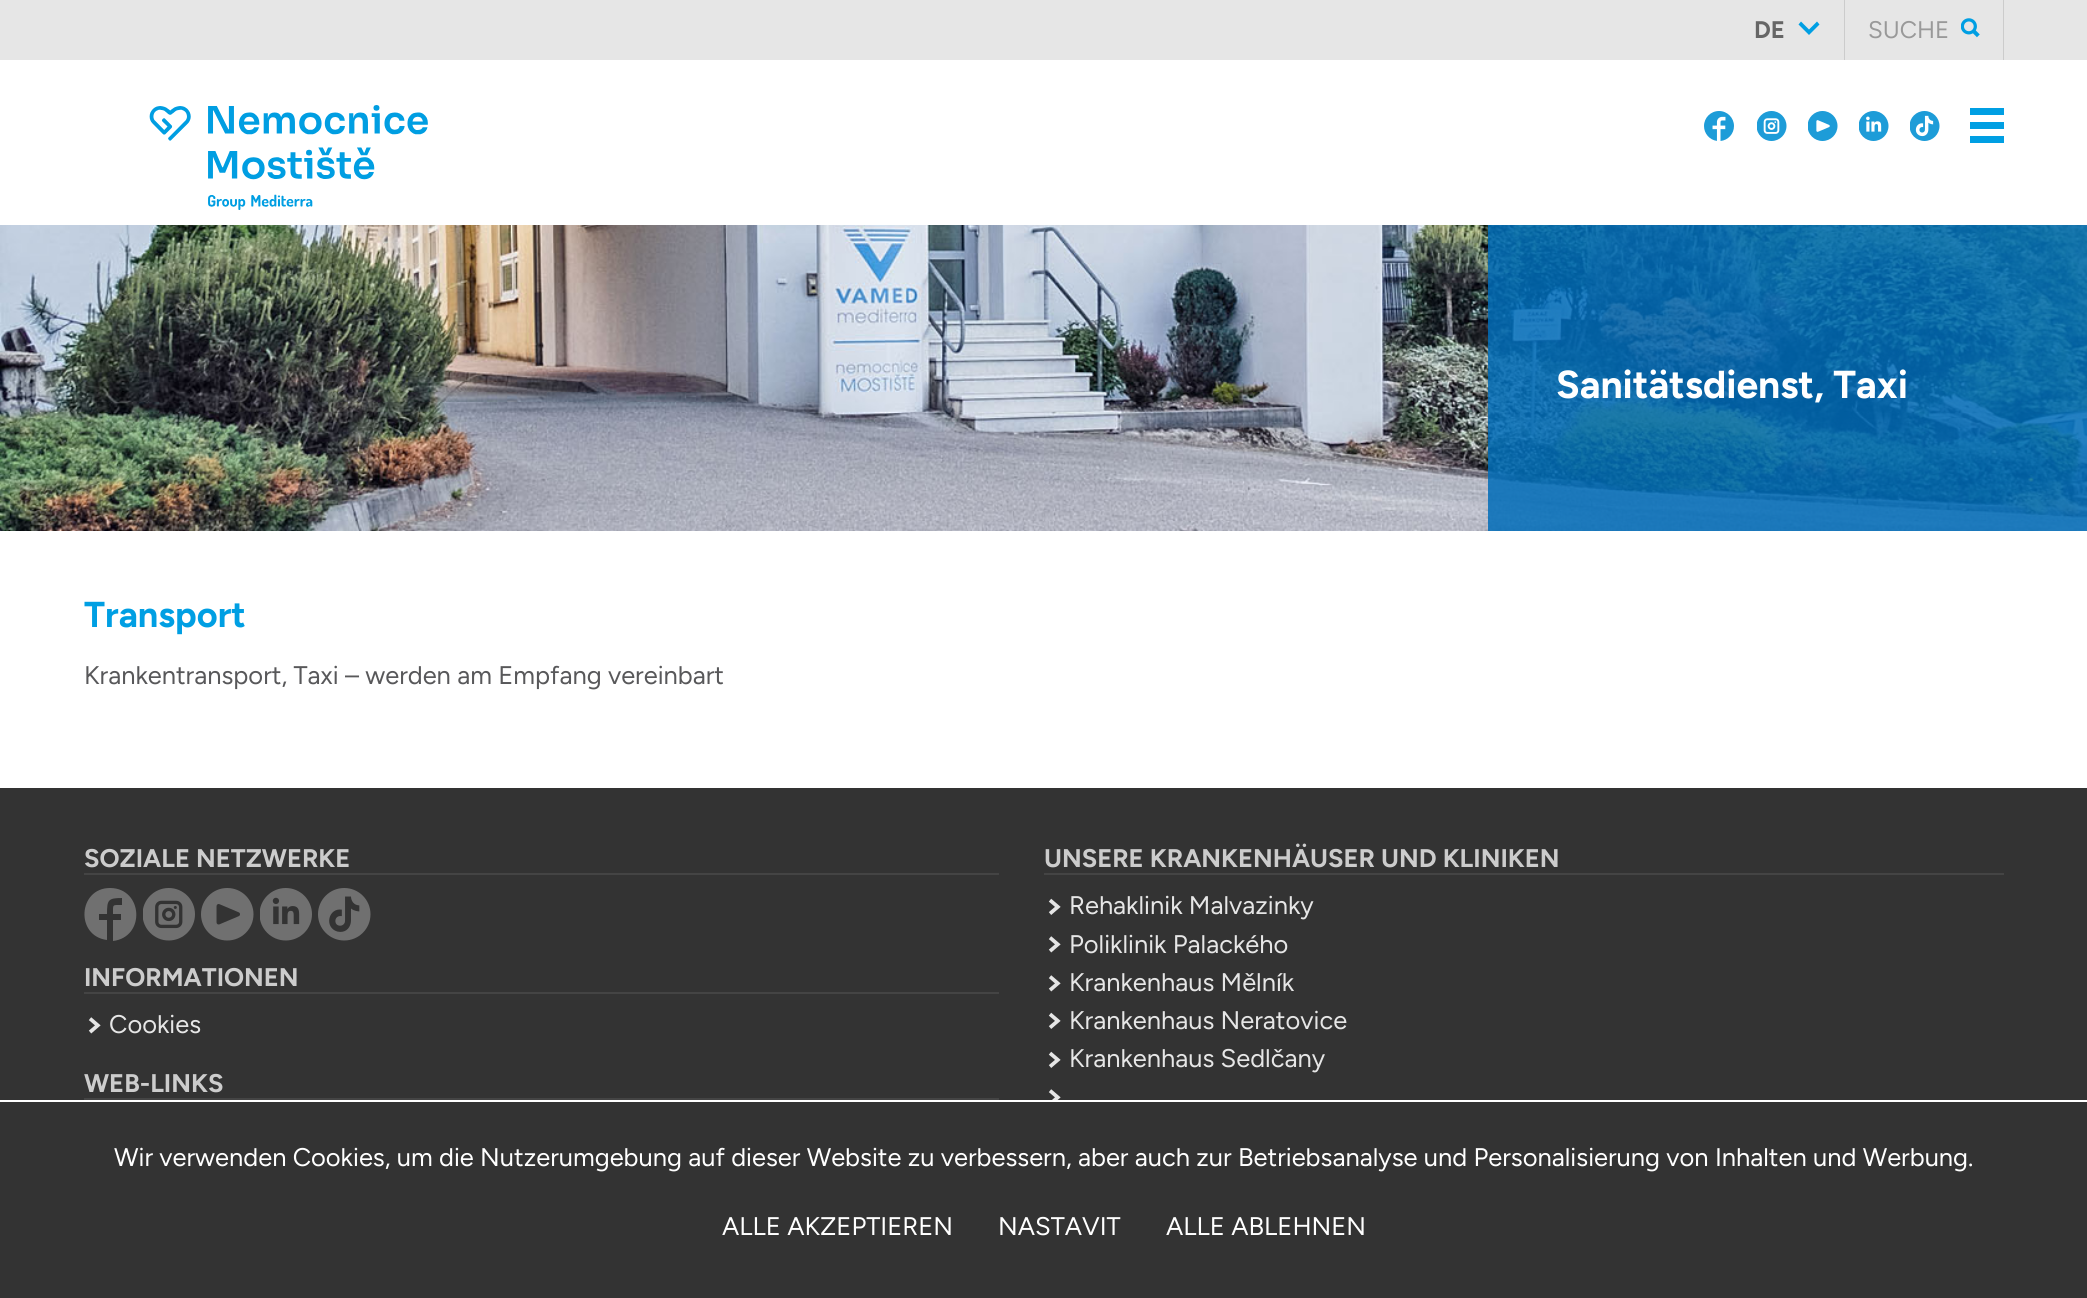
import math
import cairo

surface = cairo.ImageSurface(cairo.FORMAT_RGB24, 2087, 1298)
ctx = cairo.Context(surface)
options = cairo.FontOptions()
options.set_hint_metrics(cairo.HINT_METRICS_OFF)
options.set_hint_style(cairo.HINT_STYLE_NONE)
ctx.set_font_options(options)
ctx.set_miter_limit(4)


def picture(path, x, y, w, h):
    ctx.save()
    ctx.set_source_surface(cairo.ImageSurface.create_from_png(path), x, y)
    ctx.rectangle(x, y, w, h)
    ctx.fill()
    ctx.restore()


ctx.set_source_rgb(1, 1, 1)
ctx.paint()
ctx.set_source_rgb(0.902, 0.902, 0.902)
ctx.rectangle(0, 0, 2087, 60)
ctx.fill()
ctx.set_source_rgb(0.8, 0.8, 0.8)
ctx.rectangle(1844, 0, 1, 60)
ctx.fill()
ctx.select_font_face("Figtree", cairo.FONT_SLANT_NORMAL, cairo.FONT_WEIGHT_BOLD)
ctx.set_font_size(24)
ctx.set_source_rgb(0.4, 0.4, 0.4)
ctx.move_to(1754, 38)
ctx.show_text("DE")
ctx.set_source_rgb(0, 0.624, 0.89)
ctx.new_path()
ctx.move_to(1809, 29.5)
ctx.line_to(1801, 21.5)
ctx.line_to(1798.5, 24.5)
ctx.line_to(1809, 35)
ctx.line_to(1819.5, 24.5)
ctx.line_to(1817, 21.5)
ctx.close_path()
ctx.fill()
ctx.set_source_rgb(0.8, 0.8, 0.8)
ctx.rectangle(2003, 0, 1, 60)
ctx.fill()
ctx.select_font_face("Figtree")
ctx.set_source_rgb(0.6, 0.6, 0.6)
ctx.move_to(1868, 38)
ctx.show_text("SUCHE")
picture("img1.png", 1961, 18, 19, 20)
picture("img2.png", 149, 105, 279, 105)
picture("img3.png", 1704, 111, 30, 30)
picture("img4.png", 1757, 111, 30, 30)
picture("img5.png", 1808, 111, 30, 30)
picture("img6.png", 1859, 111, 30, 30)
picture("img7.png", 1910, 111, 30, 30)
ctx.set_source_rgb(0, 0.624, 0.89)
ctx.rectangle(1970, 108, 34, 7)
ctx.fill()
ctx.rectangle(1970, 122, 34, 7)
ctx.fill()
ctx.rectangle(1970, 136, 34, 7)
ctx.fill()
picture("img8.png", 0, 225, 2087, 306)
ctx.set_source_rgba(0, 0.427, 0.722, 0.85)
ctx.rectangle(1488, 225, 599, 306)
ctx.fill()
ctx.select_font_face("Figtree", cairo.FONT_SLANT_NORMAL, cairo.FONT_WEIGHT_BOLD)
ctx.set_font_size(39)
ctx.set_source_rgb(1, 1, 1)
ctx.move_to(1556, 398)
ctx.show_text("Sanitätsdienst, Taxi")
ctx.set_font_size(36)
ctx.set_source_rgb(0, 0.624, 0.89)
ctx.move_to(84, 627)
ctx.show_text("Transport")
ctx.select_font_face("Figtree")
ctx.set_font_size(25.5)
ctx.set_source_rgb(0.345, 0.345, 0.353)
ctx.move_to(84, 684)
ctx.show_text("Krankentransport, Taxi – werden am Empfang vereinbart")
ctx.set_source_rgb(0.2, 0.2, 0.2)
ctx.rectangle(0, 788, 2087, 312)
ctx.fill()
ctx.set_source_rgb(0.267, 0.267, 0.267)
ctx.rectangle(84, 873, 915, 2)
ctx.fill()
ctx.select_font_face("Figtree", cairo.FONT_SLANT_NORMAL, cairo.FONT_WEIGHT_BOLD)
ctx.set_source_rgb(0.8, 0.8, 0.8)
ctx.move_to(84, 867)
ctx.show_text("SOZIALE NETZWERKE")
ctx.set_source_rgb(0.439, 0.439, 0.439)
ctx.new_path()
ctx.move_to(110, 888)
ctx.curve_to(78, 888, 75, 936, 107, 940)
ctx.line_to(107, 920)
ctx.line_to(99, 920)
ctx.line_to(99, 914)
ctx.line_to(107, 914)
ctx.curve_to(107, 900, 108, 898, 122, 898)
ctx.line_to(122, 905)
ctx.curve_to(112, 905, 113, 904, 113, 914)
ctx.line_to(121, 914)
ctx.line_to(121, 920)
ctx.line_to(113, 920)
ctx.line_to(113, 941)
ctx.curve_to(146, 937, 143, 888, 110, 888)
ctx.close_path()
ctx.fill()
picture("img9.png", 143, 888, 52, 53)
picture("img10.png", 201, 888, 53, 53)
picture("img11.png", 260, 888, 52, 53)
picture("img12.png", 318, 888, 53, 53)
ctx.set_source_rgb(0.267, 0.267, 0.267)
ctx.rectangle(84, 992, 915, 2)
ctx.fill()
ctx.set_source_rgb(0.8, 0.8, 0.8)
ctx.move_to(84, 986)
ctx.show_text("INFORMATIONEN")
picture("img13.png", 88, 1017, 13, 17)
ctx.select_font_face("Figtree")
ctx.set_source_rgb(0.902, 0.902, 0.902)
ctx.move_to(109, 1033)
ctx.show_text("Cookies")
ctx.set_source_rgb(0.267, 0.267, 0.267)
ctx.rectangle(84, 1098, 915, 2)
ctx.fill()
ctx.select_font_face("Figtree", cairo.FONT_SLANT_NORMAL, cairo.FONT_WEIGHT_BOLD)
ctx.set_source_rgb(0.8, 0.8, 0.8)
ctx.move_to(84, 1092)
ctx.show_text("WEB-LINKS")
ctx.set_source_rgb(0.267, 0.267, 0.267)
ctx.rectangle(1044, 873, 960, 2)
ctx.fill()
ctx.set_source_rgb(0.8, 0.8, 0.8)
ctx.move_to(1044, 867)
ctx.show_text("UNSERE KRANKENHÄUSER UND KLINIKEN")
picture("img14.png", 1048, 898, 13, 17)
ctx.select_font_face("Figtree")
ctx.set_source_rgb(0.902, 0.902, 0.902)
ctx.move_to(1069, 914)
ctx.show_text("Rehaklinik Malvazinky")
picture("img13.png", 1048, 936, 13, 17)
ctx.move_to(1069, 953)
ctx.show_text("Poliklinik Palackého")
picture("img13.png", 1048, 975, 13, 17)
ctx.move_to(1069, 991)
ctx.show_text("Krankenhaus Mělník")
picture("img14.png", 1048, 1012, 13, 17)
ctx.move_to(1069, 1029)
ctx.show_text("Krankenhaus Neratovice")
picture("img14.png", 1048, 1051, 13, 17)
ctx.move_to(1069, 1067)
ctx.show_text("Krankenhaus Sedlčany")
picture("img15.png", 1048, 1089, 13, 11)
ctx.set_source_rgb(0.2, 0.2, 0.2)
ctx.rectangle(0, 1102, 2087, 196)
ctx.fill()
ctx.set_source_rgb(1, 1, 1)
ctx.move_to(114, 1166)
ctx.show_text("Wir verwenden Cookies, um die Nutzerumgebung auf dieser Website zu verbessern, aber auch zur Betriebsanalyse und Personalisierung von Inhalten und Werbung.")
ctx.move_to(722, 1235)
ctx.show_text("ALLE AKZEPTIEREN")
ctx.move_to(998, 1235)
ctx.show_text("NASTAVIT")
ctx.move_to(1166, 1235)
ctx.show_text("ALLE ABLEHNEN")
surface.write_to_png("page.png")
